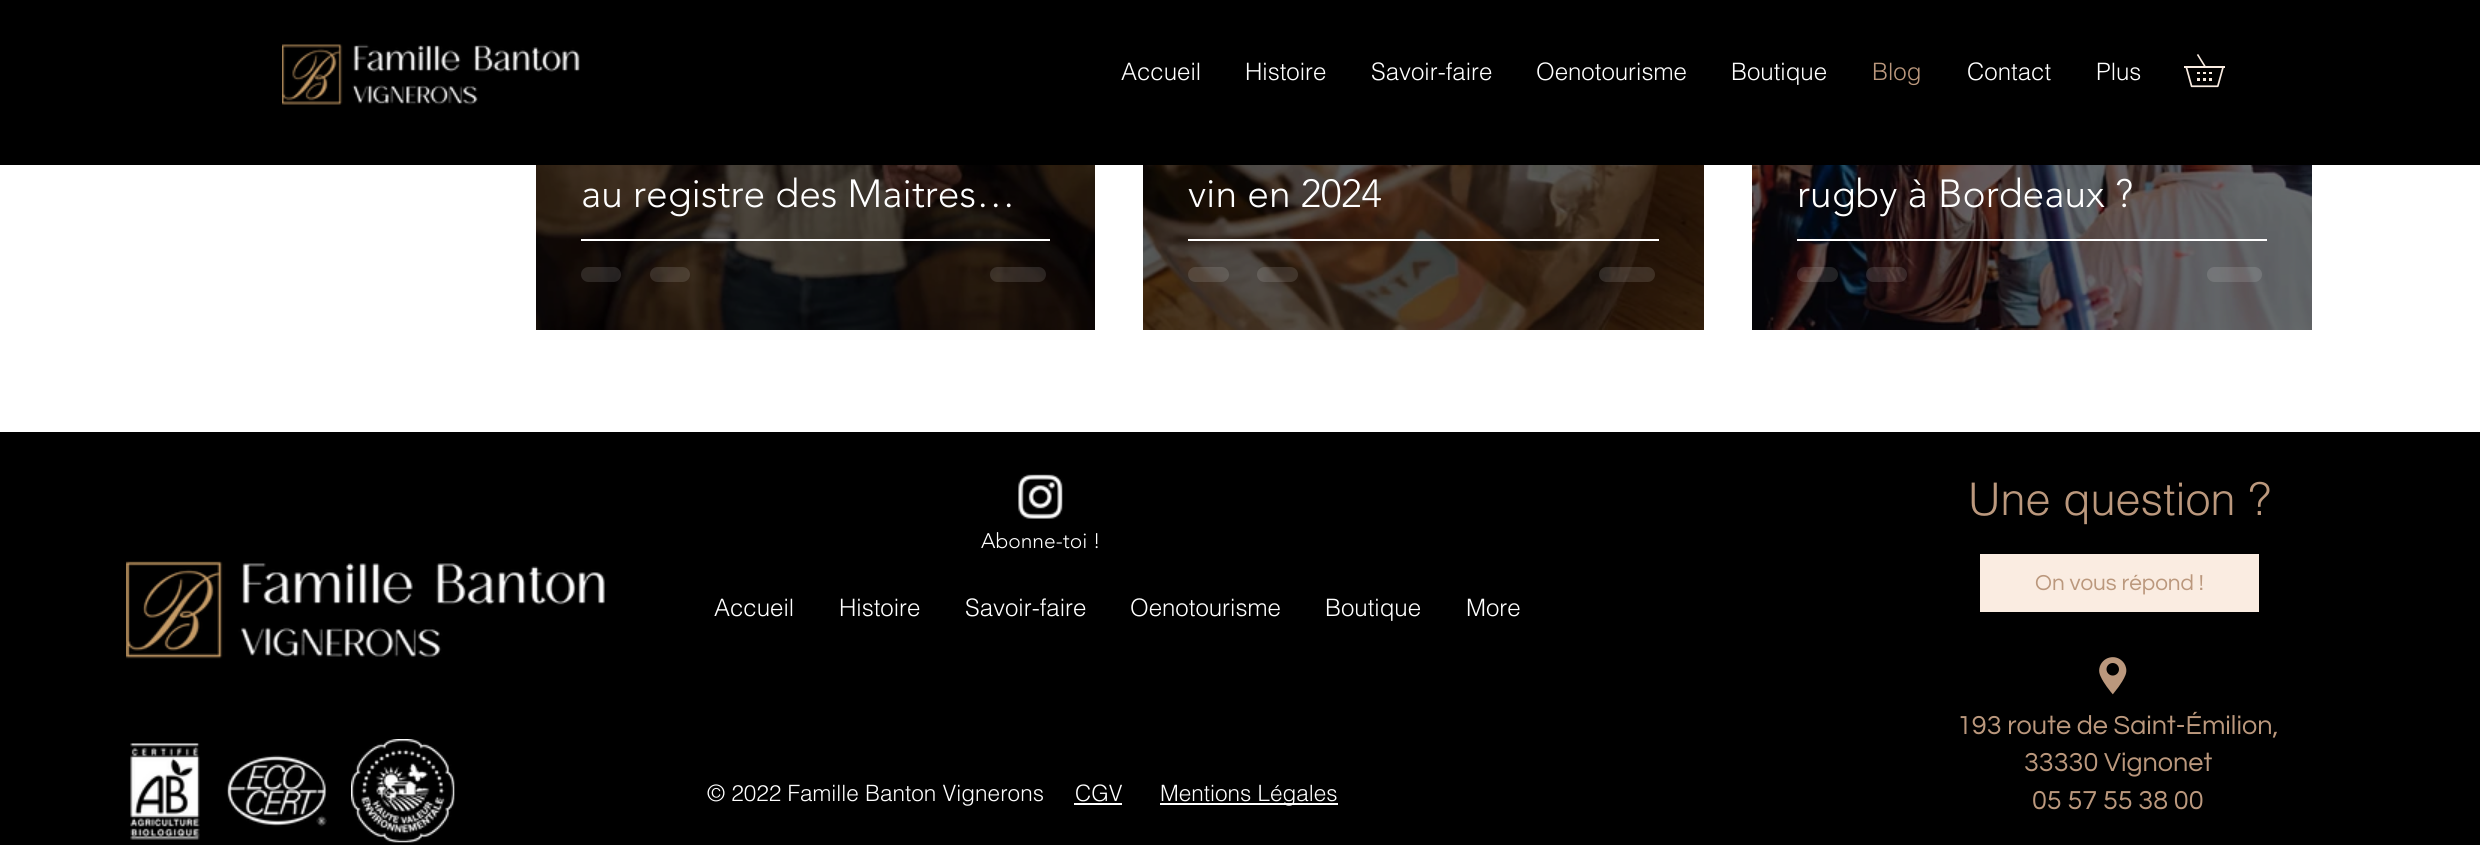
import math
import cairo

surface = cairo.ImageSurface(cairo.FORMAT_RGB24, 2480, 845)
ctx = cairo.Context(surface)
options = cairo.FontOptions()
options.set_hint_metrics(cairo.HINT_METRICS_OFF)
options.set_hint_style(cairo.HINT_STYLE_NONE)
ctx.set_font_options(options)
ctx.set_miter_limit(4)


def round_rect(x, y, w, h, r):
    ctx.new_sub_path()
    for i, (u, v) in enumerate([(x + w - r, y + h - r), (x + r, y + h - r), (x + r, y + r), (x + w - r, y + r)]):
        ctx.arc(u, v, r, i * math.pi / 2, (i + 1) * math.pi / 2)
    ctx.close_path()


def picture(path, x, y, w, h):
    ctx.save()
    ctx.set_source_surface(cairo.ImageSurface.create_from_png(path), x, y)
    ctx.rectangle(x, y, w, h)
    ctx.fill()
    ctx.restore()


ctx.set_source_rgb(1, 1, 1)
ctx.paint()
ctx.set_source_rgb(0, 0, 0)
ctx.rectangle(0, 0, 2480, 165)
ctx.fill()
picture("img1.png", 282, 44, 298, 61)
ctx.select_font_face("helvetica Light")
ctx.set_font_size(24)
ctx.set_source_rgb(1, 1, 1)
ctx.move_to(1121, 80)
ctx.show_text("Accueil")
ctx.move_to(1245, 80)
ctx.show_text("Histoire")
ctx.move_to(1371, 80)
ctx.show_text("Savoir-faire")
ctx.move_to(1536, 80)
ctx.show_text("Oenotourisme")
ctx.move_to(1731, 80)
ctx.show_text("Boutique")
ctx.set_source_rgb(0.733, 0.596, 0.49)
ctx.move_to(1872, 80)
ctx.show_text("Blog")
ctx.set_source_rgb(1, 1, 1)
ctx.move_to(1967, 80)
ctx.show_text("Contact")
ctx.move_to(2096, 80)
ctx.show_text("Plus")
picture("img2.png", 2184, 54, 41, 34)
picture("img3.png", 536, 165, 559, 165)
ctx.select_font_face("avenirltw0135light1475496 Light")
ctx.set_font_size(39)
ctx.move_to(581, 207)
ctx.show_text("au registre des Maitres…")
ctx.rectangle(581, 239, 469, 2)
ctx.fill()
ctx.set_source_rgba(1, 1, 1, 0.12)
round_rect(581, 267, 40, 15, 7.5)
ctx.fill()
round_rect(650, 267, 40, 15, 7.5)
ctx.fill()
round_rect(990, 267, 56, 15, 7.5)
ctx.fill()
picture("img4.png", 1143, 165, 561, 165)
ctx.set_source_rgb(1, 1, 1)
ctx.move_to(1188, 207)
ctx.show_text("vin en 2024")
ctx.rectangle(1188, 239, 471, 2)
ctx.fill()
ctx.set_source_rgba(1, 1, 1, 0.12)
round_rect(1188, 267, 41, 15, 7.5)
ctx.fill()
round_rect(1257, 267, 41, 15, 7.5)
ctx.fill()
round_rect(1599, 267, 56, 15, 7.5)
ctx.fill()
picture("img5.png", 1752, 165, 560, 165)
ctx.set_source_rgb(1, 1, 1)
ctx.move_to(1797, 207)
ctx.show_text("rugby à Bordeaux ?")
ctx.rectangle(1797, 239, 470, 2)
ctx.fill()
ctx.set_source_rgba(1, 1, 1, 0.12)
round_rect(1797, 267, 41, 15, 7.5)
ctx.fill()
round_rect(1866, 267, 41, 15, 7.5)
ctx.fill()
round_rect(2207, 267, 55, 15, 7.5)
ctx.fill()
ctx.set_source_rgb(0, 0, 0)
ctx.rectangle(0, 432, 2480, 413)
ctx.fill()
picture("img6.png", 1018, 474, 45, 45)
ctx.set_font_size(21)
ctx.set_source_rgb(1, 1, 1)
ctx.move_to(981, 548)
ctx.show_text("Abonne-toi !")
picture("img7.png", 126, 561, 479, 98)
ctx.select_font_face("helvetica Light")
ctx.set_font_size(24)
ctx.move_to(714, 616)
ctx.show_text("Accueil")
ctx.move_to(839, 616)
ctx.show_text("Histoire")
ctx.move_to(965, 616)
ctx.show_text("Savoir-faire")
ctx.move_to(1130, 616)
ctx.show_text("Oenotourisme")
ctx.move_to(1325, 616)
ctx.show_text("Boutique")
ctx.move_to(1466, 616)
ctx.show_text("More")
picture("img8.png", 130, 743, 70, 97)
picture("img9.png", 227, 755, 100, 72)
picture("img10.png", 351, 739, 104, 104)
ctx.set_font_size(22.5)
ctx.move_to(707, 801)
ctx.show_text("© 2022 Famille Banton Vignerons")
ctx.move_to(1075, 801)
ctx.show_text("CGV")
ctx.rectangle(1074, 803, 48, 2)
ctx.fill()
ctx.rectangle(1160, 803, 178, 2)
ctx.fill()
ctx.move_to(1160, 801)
ctx.show_text("Mentions Légales")
ctx.set_font_size(45)
ctx.set_source_rgb(0.733, 0.596, 0.49)
ctx.move_to(1968, 515)
ctx.show_text("Une question ?")
ctx.set_source_rgb(0.98, 0.925, 0.882)
ctx.rectangle(1980, 554, 279, 58)
ctx.fill()
ctx.select_font_face("Questrial")
ctx.set_font_size(22.5)
ctx.set_source_rgb(0.733, 0.596, 0.49)
ctx.move_to(2035, 590)
ctx.show_text("On vous répond !")
picture("img11.png", 2099, 657, 28, 38)
ctx.set_font_size(27)
ctx.move_to(1957, 734)
ctx.show_text("193 route de Saint-Émilion,")
ctx.move_to(2024, 771)
ctx.show_text("33330 Vignonet")
ctx.move_to(2032, 809)
ctx.show_text("05 57 55 38 00")
surface.write_to_png("page.png")
